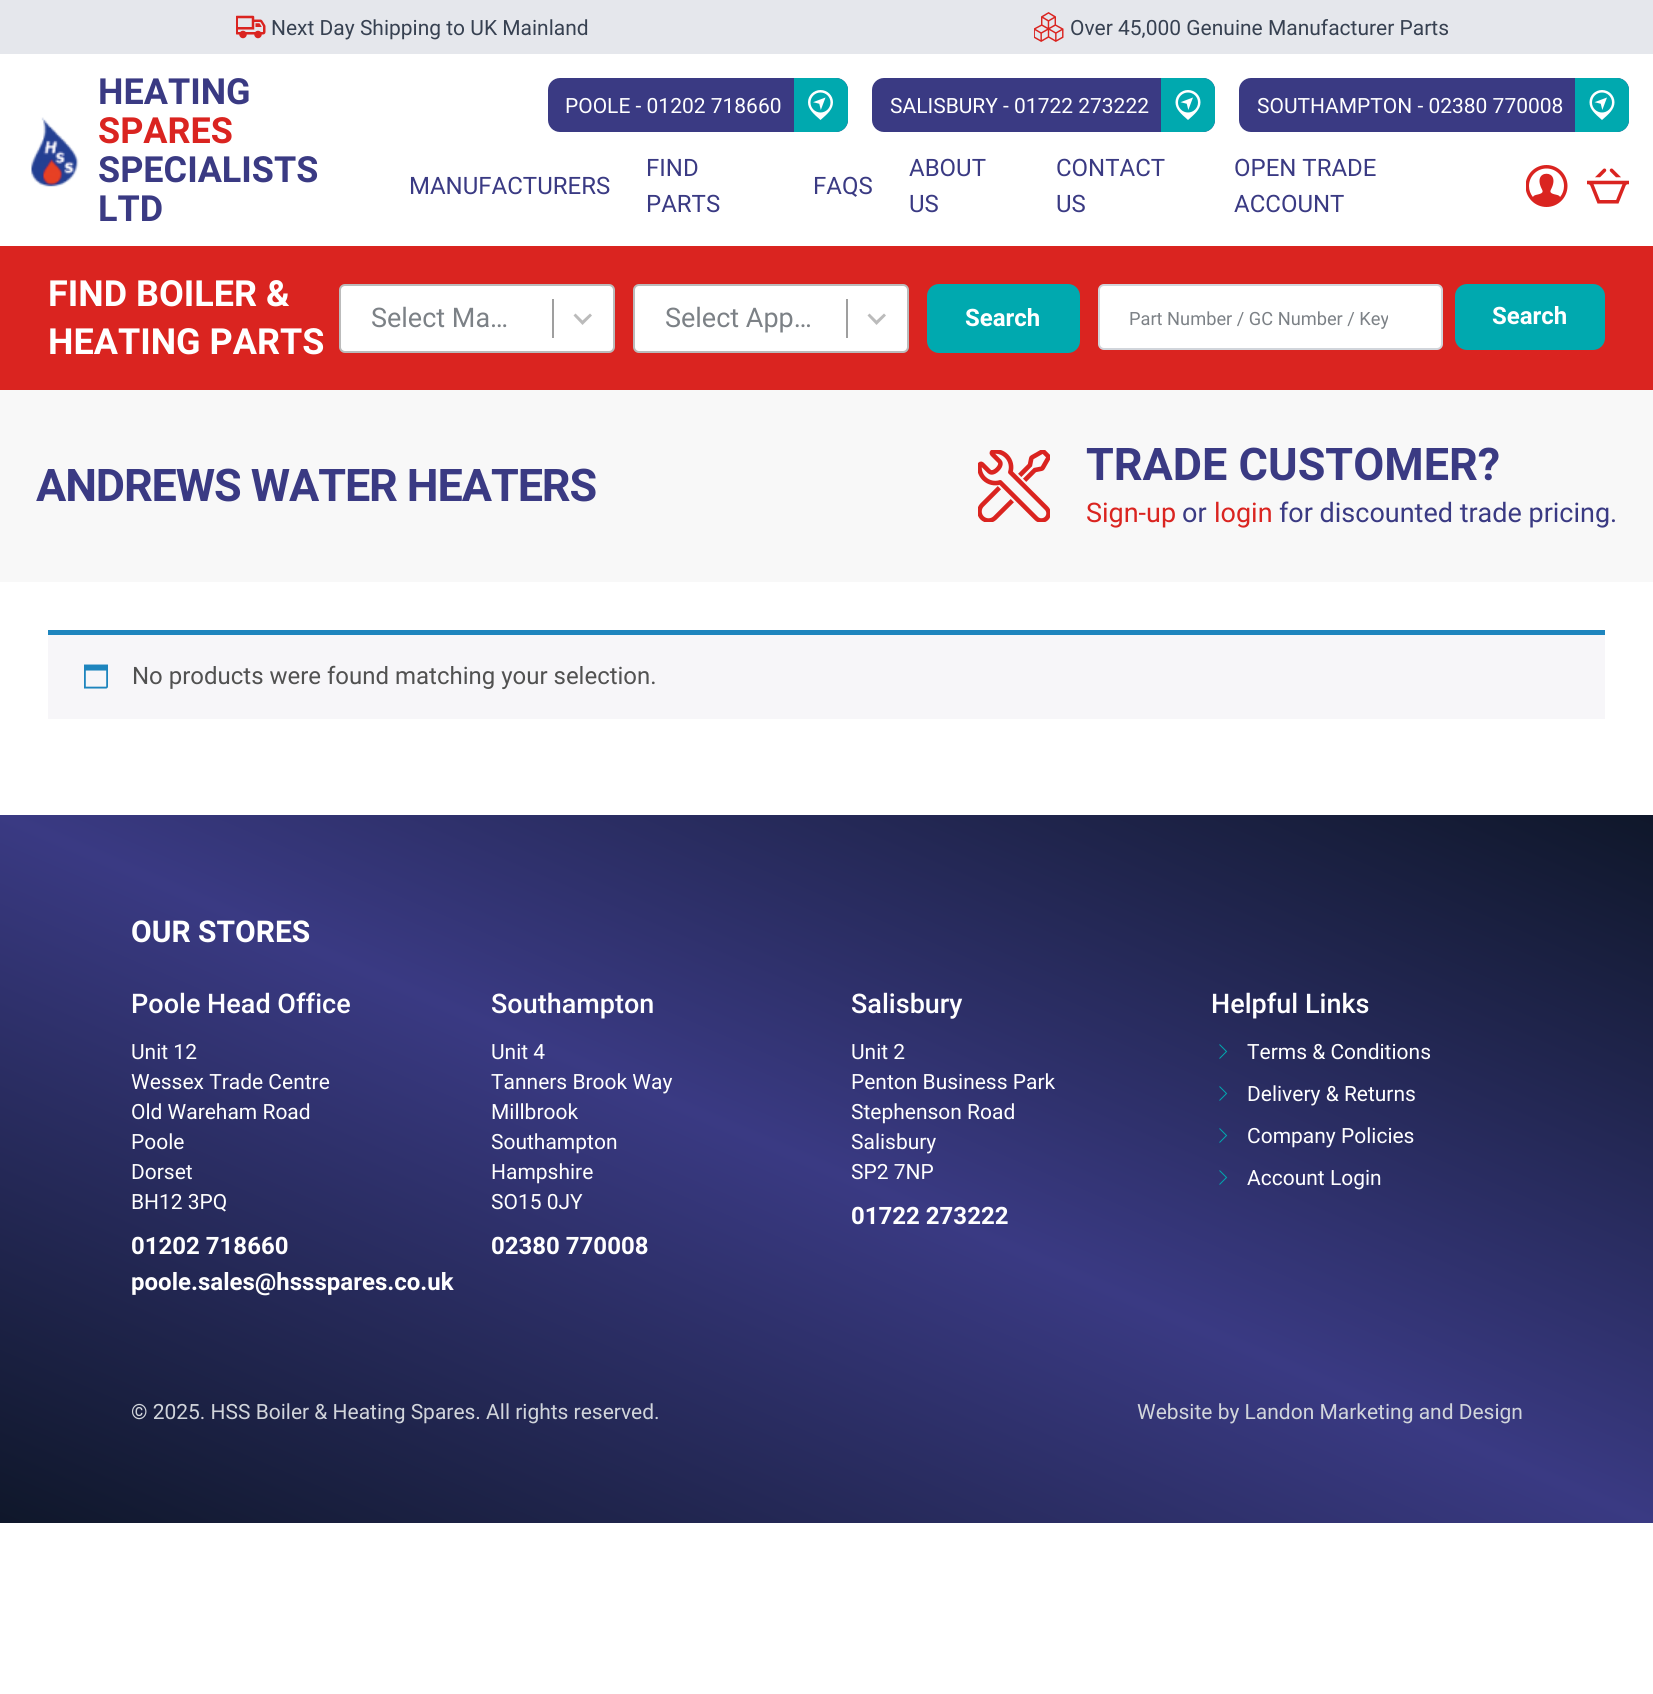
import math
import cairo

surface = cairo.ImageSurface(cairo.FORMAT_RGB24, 1653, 1694)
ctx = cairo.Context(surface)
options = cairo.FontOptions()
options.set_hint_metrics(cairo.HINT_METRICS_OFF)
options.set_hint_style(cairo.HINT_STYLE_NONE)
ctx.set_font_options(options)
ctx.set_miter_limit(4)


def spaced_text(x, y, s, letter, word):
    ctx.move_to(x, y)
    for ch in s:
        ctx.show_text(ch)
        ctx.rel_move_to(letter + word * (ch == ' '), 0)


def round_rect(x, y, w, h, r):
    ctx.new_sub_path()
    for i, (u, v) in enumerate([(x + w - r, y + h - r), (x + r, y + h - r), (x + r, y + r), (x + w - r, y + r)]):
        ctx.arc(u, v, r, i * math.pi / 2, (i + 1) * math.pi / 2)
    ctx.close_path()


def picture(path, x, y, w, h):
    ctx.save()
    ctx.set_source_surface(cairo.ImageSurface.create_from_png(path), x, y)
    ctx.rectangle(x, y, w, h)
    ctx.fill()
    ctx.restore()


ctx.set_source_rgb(1, 1, 1)
ctx.paint()
ctx.set_source_rgb(0.898, 0.906, 0.922)
ctx.rectangle(0, 0, 1653, 54)
ctx.fill()
picture("img1.png", 236, 15, 30, 24)
ctx.select_font_face("Roboto")
ctx.set_font_size(21)
ctx.set_source_rgb(0.216, 0.255, 0.318)
ctx.move_to(271, 35)
ctx.show_text("Next Day Shipping to UK Mainland")
picture("img2.png", 1034, 12, 30, 30)
ctx.move_to(1070, 35)
ctx.show_text("Over 45,000 Genuine Manufacturer Parts")
picture("img3.png", 31, 117, 48, 70)
ctx.select_font_face("Roboto", cairo.FONT_SLANT_NORMAL, cairo.FONT_WEIGHT_BOLD)
ctx.set_font_size(36)
ctx.set_source_rgb(0.227, 0.227, 0.514)
ctx.move_to(98, 104)
ctx.show_text("HEATING")
ctx.set_source_rgb(0.855, 0.141, 0.125)
ctx.move_to(98, 143)
ctx.show_text("SPARES")
ctx.set_source_rgb(0.227, 0.227, 0.514)
ctx.move_to(98, 182)
ctx.show_text("SPECIALISTS")
ctx.move_to(98, 221)
ctx.show_text("LTD")
round_rect(548, 78, 300, 54, 12)
ctx.fill()
ctx.select_font_face("Roboto")
ctx.set_font_size(21)
ctx.set_source_rgb(1, 1, 1)
ctx.move_to(565, 113)
ctx.show_text("POOLE - 01202 718660")
ctx.set_source_rgb(0, 0.663, 0.686)
ctx.new_path()
ctx.move_to(794, 78)
ctx.line_to(836, 78)
ctx.curve_to(842.5, 78, 848, 83.5, 848, 90)
ctx.line_to(848, 120)
ctx.curve_to(848, 126.5, 842.5, 132, 836, 132)
ctx.line_to(794, 132)
ctx.close_path()
ctx.fill()
picture("img4.png", 808, 90, 25, 30)
ctx.set_source_rgb(0.227, 0.227, 0.514)
round_rect(872, 78, 343, 54, 12)
ctx.fill()
ctx.set_source_rgb(1, 1, 1)
ctx.move_to(890, 113)
ctx.show_text("SALISBURY - 01722 273222")
ctx.set_source_rgb(0, 0.663, 0.686)
ctx.new_path()
ctx.move_to(1161, 78)
ctx.line_to(1203, 78)
ctx.curve_to(1209.5, 78, 1215, 83.5, 1215, 90)
ctx.line_to(1215, 120)
ctx.curve_to(1215, 126.5, 1209.5, 132, 1203, 132)
ctx.line_to(1161, 132)
ctx.close_path()
ctx.fill()
picture("img5.png", 1175, 90, 26, 30)
ctx.set_source_rgb(0.227, 0.227, 0.514)
round_rect(1239, 78, 390, 54, 12)
ctx.fill()
ctx.set_source_rgb(1, 1, 1)
ctx.move_to(1257, 113)
ctx.show_text("SOUTHAMPTON - 02380 770008")
ctx.set_source_rgb(0, 0.663, 0.686)
ctx.new_path()
ctx.move_to(1575, 78)
ctx.line_to(1617, 78)
ctx.curve_to(1623.5, 78, 1629, 83.5, 1629, 90)
ctx.line_to(1629, 120)
ctx.curve_to(1629, 126.5, 1623.5, 132, 1617, 132)
ctx.line_to(1575, 132)
ctx.close_path()
ctx.fill()
picture("img5.png", 1589, 90, 26, 30)
ctx.set_font_size(24)
ctx.set_source_rgb(0.227, 0.227, 0.514)
ctx.move_to(409, 194)
ctx.show_text("MANUFACTURERS")
ctx.move_to(646, 176)
ctx.show_text("FIND")
ctx.move_to(646, 212)
ctx.show_text("PARTS")
ctx.move_to(813, 194)
ctx.show_text("FAQS")
ctx.move_to(909, 176)
ctx.show_text("ABOUT")
ctx.move_to(909, 212)
ctx.show_text("US")
ctx.move_to(1056, 176)
ctx.show_text("CONTACT")
ctx.move_to(1056, 212)
ctx.show_text("US")
ctx.move_to(1234, 176)
ctx.show_text("OPEN TRADE")
ctx.move_to(1234, 212)
ctx.show_text("ACCOUNT")
picture("img6.png", 1526, 165, 42, 42)
picture("img7.png", 1587, 168, 42, 36)
ctx.set_source_rgb(0.855, 0.141, 0.125)
ctx.rectangle(0, 246, 1653, 144)
ctx.fill()
ctx.select_font_face("Roboto", cairo.FONT_SLANT_NORMAL, cairo.FONT_WEIGHT_BOLD)
ctx.set_font_size(36)
ctx.set_source_rgb(1, 1, 1)
ctx.move_to(48, 306)
ctx.show_text("FIND BOILER &")
ctx.move_to(48, 354)
ctx.show_text("HEATING PARTS")
round_rect(340, 285, 274, 67, 5)
ctx.fill_preserve()
ctx.set_source_rgb(0.733, 0.733, 0.733)
ctx.stroke()
ctx.select_font_face("Roboto")
ctx.set_font_size(27)
ctx.set_source_rgb(0.486, 0.506, 0.525)
ctx.move_to(371, 327)
ctx.show_text("Select Ma…")
ctx.set_source_rgb(0.624, 0.624, 0.624)
ctx.rectangle(552, 299, 2, 39)
ctx.fill()
ctx.set_source_rgb(0.733, 0.733, 0.733)
ctx.new_path()
ctx.move_to(590, 313.5)
ctx.line_to(582.5, 320.5)
ctx.line_to(575.5, 313.5)
ctx.line_to(573.5, 315.5)
ctx.line_to(582.5, 325)
ctx.line_to(592, 315.5)
ctx.close_path()
ctx.fill()
ctx.set_source_rgb(1, 1, 1)
round_rect(634, 285, 274, 67, 5)
ctx.fill_preserve()
ctx.set_source_rgb(0.733, 0.733, 0.733)
ctx.stroke()
ctx.set_source_rgb(0.486, 0.506, 0.525)
ctx.move_to(665, 327)
ctx.show_text("Select App…")
ctx.set_source_rgb(0.624, 0.624, 0.624)
ctx.rectangle(846, 299, 2, 39)
ctx.fill()
ctx.set_source_rgb(0.733, 0.733, 0.733)
ctx.new_path()
ctx.move_to(884, 313.5)
ctx.line_to(876.5, 320.5)
ctx.line_to(869.5, 313.5)
ctx.line_to(867.5, 315.5)
ctx.line_to(876.5, 325)
ctx.line_to(886, 315.5)
ctx.close_path()
ctx.fill()
ctx.set_source_rgb(0, 0.663, 0.686)
round_rect(928, 285, 151, 67, 11)
ctx.fill_preserve()
ctx.stroke()
ctx.select_font_face("Roboto", cairo.FONT_SLANT_NORMAL, cairo.FONT_WEIGHT_BOLD)
ctx.set_font_size(24)
ctx.set_source_rgb(1, 1, 1)
ctx.move_to(965, 326)
ctx.show_text("Search")
round_rect(1099, 285, 343, 64, 5)
ctx.fill_preserve()
ctx.set_source_rgb(0.82, 0.835, 0.859)
ctx.stroke()
ctx.save()
ctx.rectangle(1130, 309, 258, 21)
ctx.clip()
ctx.select_font_face("Roboto")
ctx.set_font_size(18.25)
ctx.set_source_rgb(0.486, 0.506, 0.525)
ctx.move_to(1129, 325)
ctx.show_text("Part Number / GC Number / Key")
ctx.restore()
ctx.set_source_rgb(0, 0.663, 0.686)
round_rect(1455, 284, 150, 66, 12)
ctx.fill()
ctx.set_source_rgb(1, 1, 1)
ctx.move_to(1492, 324)
ctx.show_text("Search")
ctx.set_source_rgb(0.969, 0.969, 0.969)
ctx.rectangle(0, 390, 1653, 192)
ctx.fill()
ctx.set_font_size(45)
ctx.set_source_rgb(0.227, 0.227, 0.514)
spaced_text(36, 501, "ANDREWS WATER HEATERS", -1.1, 0)
picture("img8.png", 978, 450, 72, 72)
ctx.move_to(1086, 480)
ctx.show_text("TRADE CUSTOMER?")
ctx.select_font_face("Roboto")
ctx.set_font_size(27)
ctx.set_source_rgb(0.855, 0.141, 0.125)
ctx.move_to(1086, 522)
ctx.show_text("Sign-up")
ctx.set_source_rgb(0.227, 0.227, 0.514)
ctx.move_to(1182, 522)
ctx.show_text("or")
ctx.set_source_rgb(0.855, 0.141, 0.125)
ctx.move_to(1214, 522)
ctx.show_text("login")
ctx.set_source_rgb(0.227, 0.227, 0.514)
ctx.move_to(1279, 522)
ctx.show_text("for discounted trade pricing.")
ctx.set_source_rgb(0.965, 0.961, 0.973)
ctx.rectangle(48, 635, 1557, 84)
ctx.fill()
ctx.set_source_rgb(0.118, 0.522, 0.745)
ctx.rectangle(48, 630, 1557, 5)
ctx.fill()
picture("img9.png", 84, 664, 24, 25)
ctx.set_font_size(24)
ctx.set_source_rgb(0.318, 0.318, 0.318)
ctx.move_to(132, 684)
ctx.show_text("No products were found matching your selection.")
gradient = cairo.LinearGradient(570, 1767, 1083, 570)
gradient.add_color_stop_rgba(0, 0.059, 0.09, 0.165, 1)
gradient.add_color_stop_rgba(0.5, 0.227, 0.227, 0.514, 1)
gradient.add_color_stop_rgba(1, 0.059, 0.09, 0.165, 1)
ctx.set_source(gradient)
ctx.rectangle(0, 815, 1653, 708)
ctx.fill()
ctx.select_font_face("Roboto", cairo.FONT_SLANT_NORMAL, cairo.FONT_WEIGHT_BOLD)
ctx.set_font_size(30)
ctx.set_source_rgb(1, 1, 1)
ctx.move_to(131, 942)
ctx.show_text("OUR STORES")
ctx.select_font_face("Roboto Medium")
ctx.set_font_size(27)
ctx.move_to(131, 1013)
ctx.show_text("Poole Head Office")
ctx.select_font_face("Roboto")
ctx.set_font_size(21)
ctx.move_to(131, 1059)
ctx.show_text("Unit 12")
ctx.move_to(131, 1089)
ctx.show_text("Wessex Trade Centre")
ctx.move_to(131, 1119)
ctx.show_text("Old Wareham Road")
ctx.move_to(131, 1149)
ctx.show_text("Poole")
ctx.move_to(131, 1179)
ctx.show_text("Dorset")
ctx.move_to(131, 1209)
ctx.show_text("BH12 3PQ")
ctx.select_font_face("Roboto", cairo.FONT_SLANT_NORMAL, cairo.FONT_WEIGHT_BOLD)
ctx.set_font_size(24)
ctx.move_to(131, 1254)
ctx.show_text("01202 718660")
ctx.move_to(131, 1290)
ctx.show_text("poole.sales@hssspares.co.uk")
ctx.select_font_face("Roboto Medium")
ctx.set_font_size(27)
ctx.move_to(491, 1013)
ctx.show_text("Southampton")
ctx.select_font_face("Roboto")
ctx.set_font_size(21)
ctx.move_to(491, 1059)
ctx.show_text("Unit 4")
ctx.move_to(491, 1089)
ctx.show_text("Tanners Brook Way")
ctx.move_to(491, 1119)
ctx.show_text("Millbrook")
ctx.move_to(491, 1149)
ctx.show_text("Southampton")
ctx.move_to(491, 1179)
ctx.show_text("Hampshire")
ctx.move_to(491, 1209)
ctx.show_text("SO15 0JY")
ctx.select_font_face("Roboto", cairo.FONT_SLANT_NORMAL, cairo.FONT_WEIGHT_BOLD)
ctx.set_font_size(24)
ctx.move_to(491, 1254)
ctx.show_text("02380 770008")
ctx.select_font_face("Roboto Medium")
ctx.set_font_size(27)
ctx.move_to(851, 1013)
ctx.show_text("Salisbury")
ctx.select_font_face("Roboto")
ctx.set_font_size(21)
ctx.move_to(851, 1059)
ctx.show_text("Unit 2")
ctx.move_to(851, 1089)
ctx.show_text("Penton Business Park")
ctx.move_to(851, 1119)
ctx.show_text("Stephenson Road")
ctx.move_to(851, 1149)
ctx.show_text("Salisbury")
ctx.move_to(851, 1179)
ctx.show_text("SP2 7NP")
ctx.select_font_face("Roboto", cairo.FONT_SLANT_NORMAL, cairo.FONT_WEIGHT_BOLD)
ctx.set_font_size(24)
ctx.move_to(851, 1224)
ctx.show_text("01722 273222")
ctx.select_font_face("Roboto Medium")
ctx.set_font_size(27)
ctx.move_to(1211, 1013)
ctx.show_text("Helpful Links")
ctx.new_path()
ctx.move_to(1219.5, 1044.5)
ctx.line_to(1226.5, 1051.5)
ctx.line_to(1219.5, 1058.5)
ctx.set_source_rgb(0, 0.663, 0.686)
ctx.set_line_width(1)
ctx.stroke()
ctx.select_font_face("Roboto")
ctx.set_font_size(21)
ctx.set_source_rgb(1, 1, 1)
ctx.move_to(1247, 1059)
ctx.show_text("Terms & Conditions")
ctx.new_path()
ctx.move_to(1219.5, 1086.5)
ctx.line_to(1226.5, 1093.5)
ctx.line_to(1219.5, 1100.5)
ctx.set_source_rgb(0, 0.663, 0.686)
ctx.stroke()
ctx.set_source_rgb(1, 1, 1)
ctx.move_to(1247, 1101)
ctx.show_text("Delivery & Returns")
ctx.new_path()
ctx.move_to(1219.5, 1128.5)
ctx.line_to(1226.5, 1135.5)
ctx.line_to(1219.5, 1142.5)
ctx.set_source_rgb(0, 0.663, 0.686)
ctx.stroke()
ctx.set_source_rgb(1, 1, 1)
ctx.move_to(1247, 1143)
ctx.show_text("Company Policies")
ctx.new_path()
ctx.move_to(1219.5, 1170.5)
ctx.line_to(1226.5, 1177.5)
ctx.line_to(1219.5, 1184.5)
ctx.set_source_rgb(0, 0.663, 0.686)
ctx.stroke()
ctx.set_source_rgb(1, 1, 1)
ctx.move_to(1247, 1185)
ctx.show_text("Account Login")
ctx.set_source_rgb(0.82, 0.835, 0.859)
ctx.move_to(131, 1419)
ctx.show_text("© 2025. HSS Boiler & Heating Spares. All rights reserved.")
ctx.move_to(1137, 1419)
ctx.show_text("Website by Landon Marketing and Design")
surface.write_to_png("page.png")
